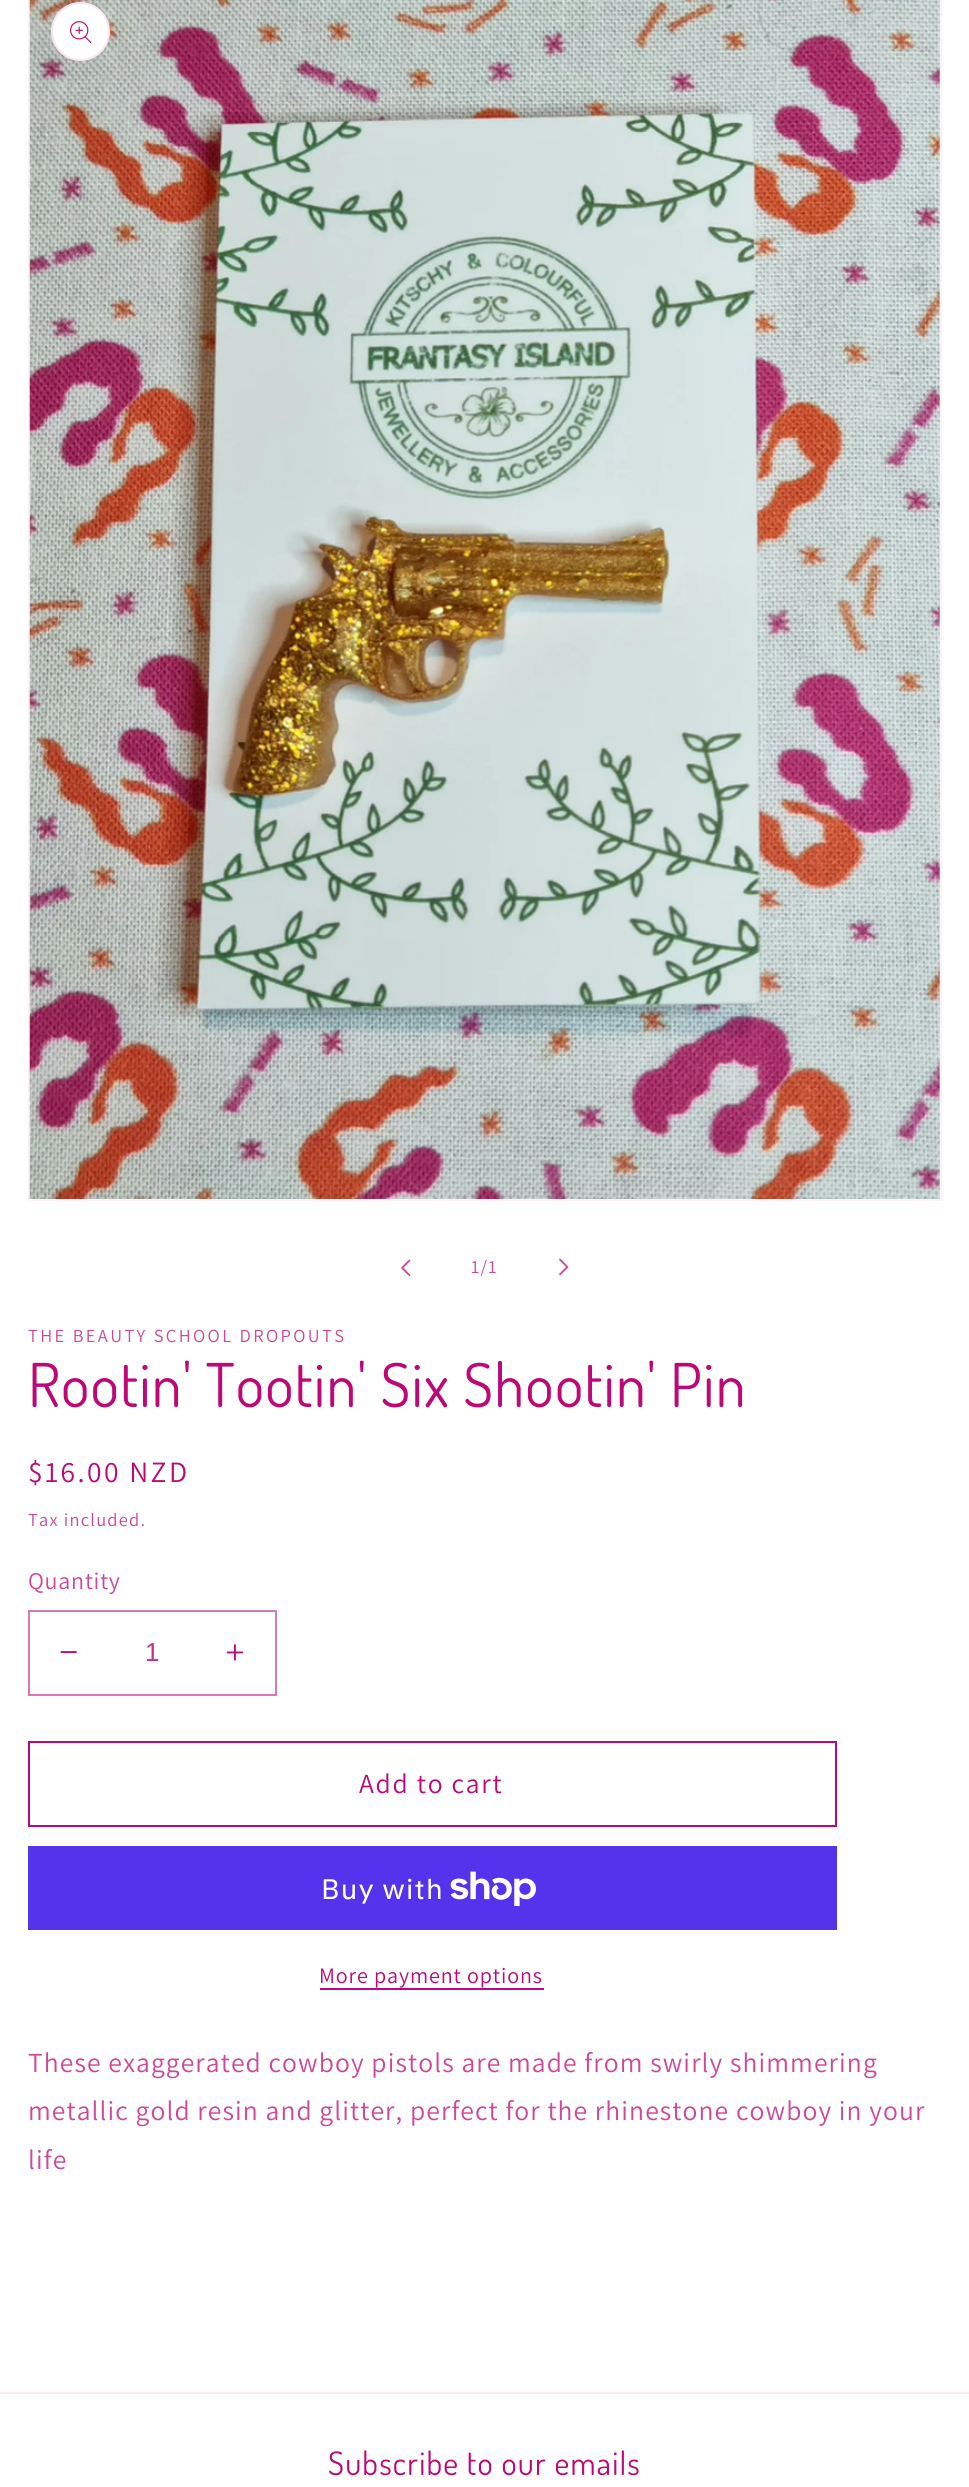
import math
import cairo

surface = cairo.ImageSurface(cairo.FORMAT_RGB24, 969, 2487)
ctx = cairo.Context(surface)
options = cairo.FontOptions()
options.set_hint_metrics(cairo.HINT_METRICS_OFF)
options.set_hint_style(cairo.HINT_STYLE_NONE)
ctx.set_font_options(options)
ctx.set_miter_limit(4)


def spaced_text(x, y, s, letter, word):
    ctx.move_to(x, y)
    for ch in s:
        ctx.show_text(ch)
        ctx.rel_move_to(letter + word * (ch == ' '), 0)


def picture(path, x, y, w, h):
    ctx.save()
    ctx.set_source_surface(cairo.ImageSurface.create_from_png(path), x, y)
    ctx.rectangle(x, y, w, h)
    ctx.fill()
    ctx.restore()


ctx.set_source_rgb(1, 1, 1)
ctx.paint()
ctx.rectangle(29, -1, 912, 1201)
ctx.set_source_rgb(0.988, 0.953, 0.973)
ctx.stroke()
picture("img1.png", 29, 0, 911, 1199)
ctx.set_source_rgb(1, 1, 1)
ctx.arc(80.5, 31.5, 29.5, 0, 2 * math.pi)
ctx.fill()
ctx.arc(80.5, 31.5, 28.5, 0, 2 * math.pi)
ctx.set_source_rgba(0.741, 0.035, 0.463, 0.1)
ctx.stroke()
picture("img2.png", 70, 21, 21, 22)
picture("img3.png", 401, 1259, 10, 17)
ctx.select_font_face("Assistant")
ctx.set_font_size(18.4)
ctx.set_source_rgb(0.808, 0.278, 0.596)
spaced_text(471, 1273, "1/1", 1.25, 0)
picture("img4.png", 559, 1258, 10, 18)
spaced_text(28, 1342, "THE BEAUTY SCHOOL DROPOUTS", 2.4, 0)
ctx.select_font_face("Dosis")
ctx.set_font_size(60.4)
ctx.set_source_rgb(0.741, 0.035, 0.463)
spaced_text(28, 1407, "Rootin' Tootin' Six Shootin' Pin", 1.2, 0)
ctx.select_font_face("Assistant")
ctx.set_font_size(29.5)
spaced_text(28, 1482, "$16.00 NZD", 2.4, 0)
ctx.set_font_size(18.4)
ctx.set_source_rgb(0.808, 0.278, 0.596)
spaced_text(28, 1526, "Tax included.", 1.25, 0)
ctx.set_font_size(24)
spaced_text(28, 1589, "Quantity", 0.75, 0)
picture("img5.png", 60, 1651, 17, 2)
picture("img6.png", 226, 1644, 18, 17)
ctx.rectangle(29, 1611, 247, 84)
ctx.set_source_rgb(0.859, 0.471, 0.706)
ctx.stroke()
ctx.select_font_face("Liberation Sans")
ctx.set_font_size(26)
ctx.set_source_rgb(0.78, 0.18, 0.545)
ctx.move_to(145, 1661)
ctx.show_text("1")
ctx.rectangle(29, 1742, 807, 84)
ctx.set_source_rgb(0.741, 0.035, 0.463)
ctx.stroke()
ctx.select_font_face("Assistant")
ctx.set_font_size(27.55)
spaced_text(359, 1793, "Add to cart", 1.75, 0)
ctx.set_source_rgb(0.329, 0.2, 0.922)
ctx.rectangle(28, 1846, 809, 84)
ctx.fill()
ctx.select_font_face("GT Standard")
ctx.set_font_size(28)
ctx.set_source_rgb(1, 1, 1)
spaced_text(321, 1899, "Buy with", 1.1, 0)
picture("img7.png", 450, 1871, 86, 35)
ctx.select_font_face("Assistant")
ctx.set_font_size(22)
ctx.set_source_rgb(0.741, 0.035, 0.463)
spaced_text(319, 1983, "More payment options", 0.9, 0)
ctx.rectangle(320, 1988, 224, 2)
ctx.fill()
ctx.set_font_size(27.55)
ctx.set_source_rgb(0.808, 0.278, 0.596)
spaced_text(28, 2072, "These exaggerated cowboy pistols are made from swirly shimmering", 1.1, 0)
spaced_text(28, 2120, "metallic gold resin and glitter, perfect for the rhinestone cowboy in your", 1.1, 0)
spaced_text(28, 2169, "life", 1.1, 0)
ctx.set_source_rgb(0.98, 0.922, 0.957)
ctx.rectangle(0, 2392, 969, 2)
ctx.fill()
ctx.select_font_face("Dosis")
ctx.set_font_size(32.25)
ctx.set_source_rgb(0.741, 0.035, 0.463)
spaced_text(328, 2475, "Subscribe to our emails", 1.2, 0)
surface.write_to_png("page.png")
